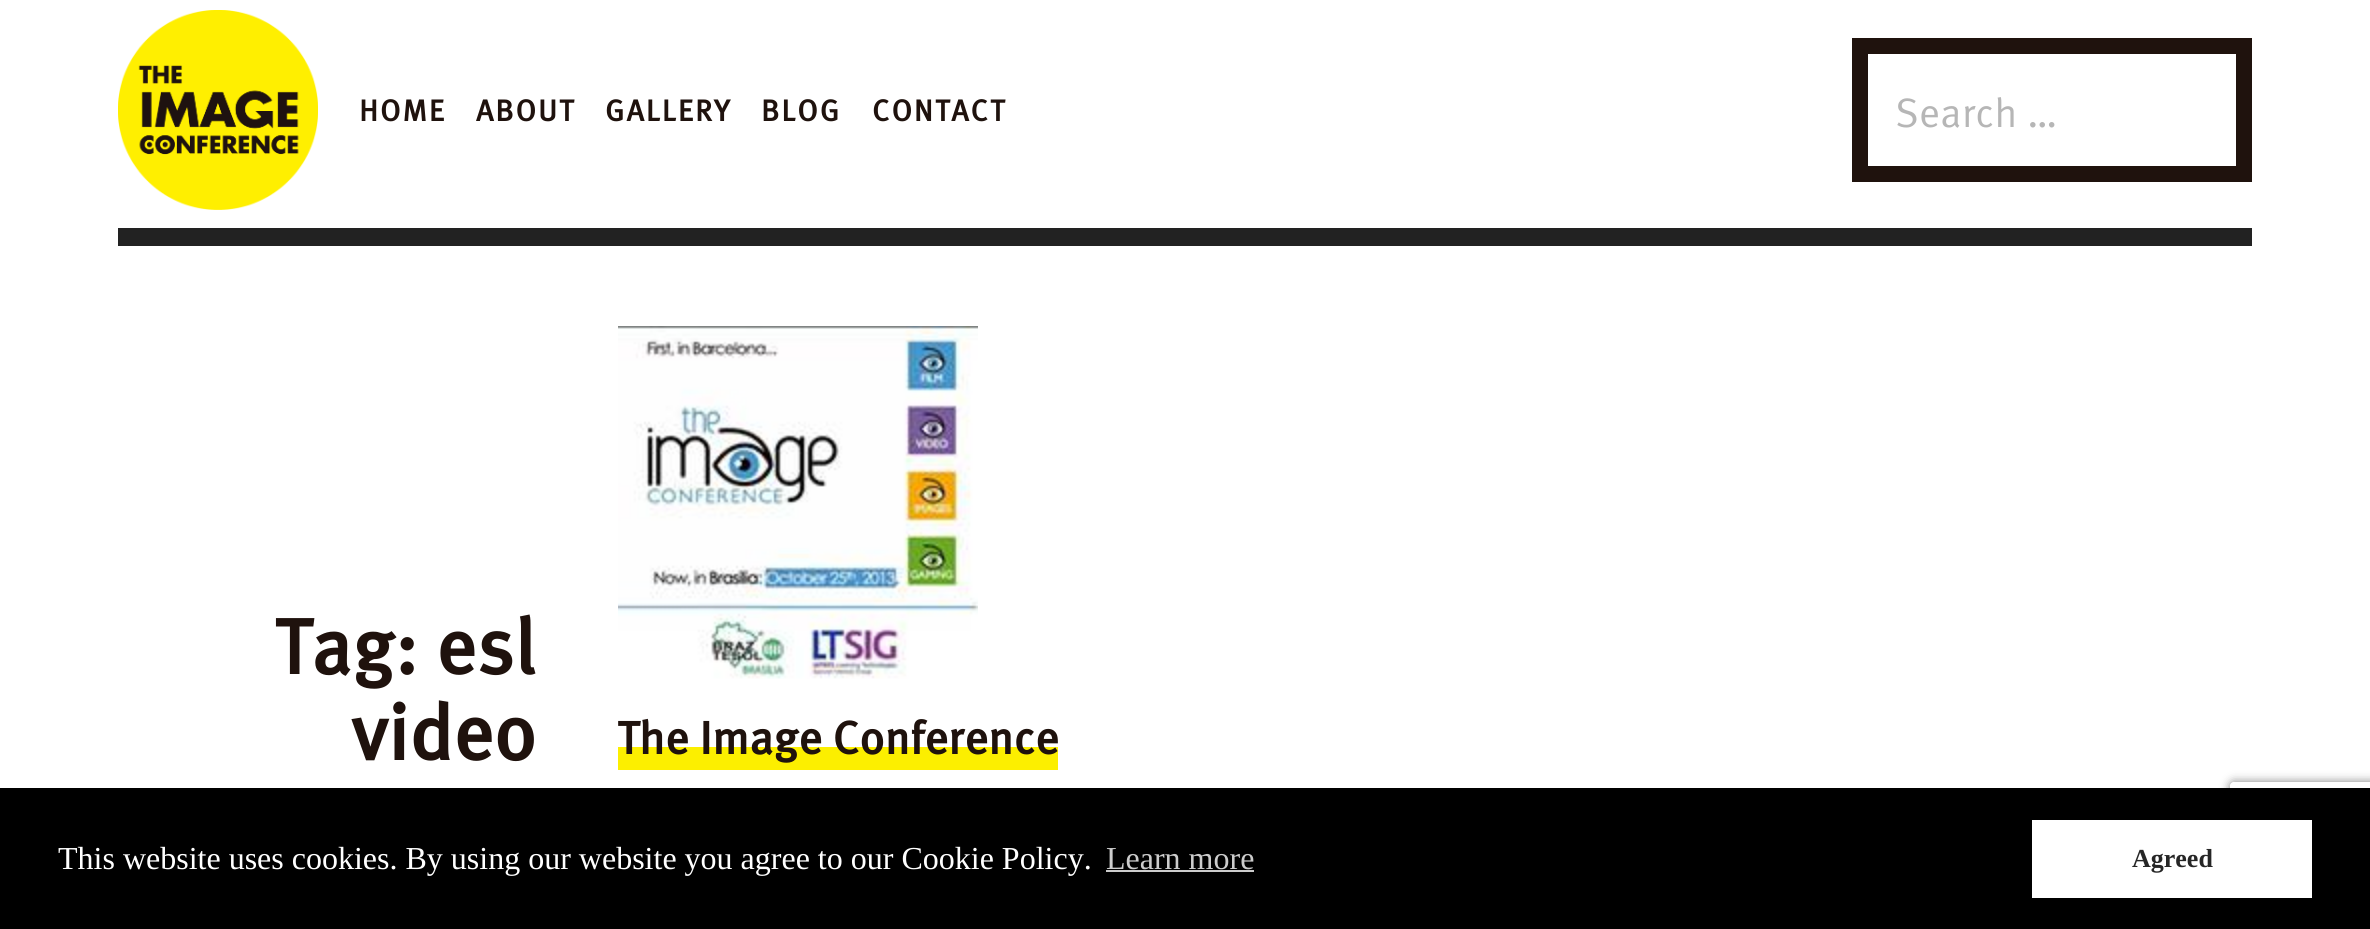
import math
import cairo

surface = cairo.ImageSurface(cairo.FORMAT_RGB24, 2370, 929)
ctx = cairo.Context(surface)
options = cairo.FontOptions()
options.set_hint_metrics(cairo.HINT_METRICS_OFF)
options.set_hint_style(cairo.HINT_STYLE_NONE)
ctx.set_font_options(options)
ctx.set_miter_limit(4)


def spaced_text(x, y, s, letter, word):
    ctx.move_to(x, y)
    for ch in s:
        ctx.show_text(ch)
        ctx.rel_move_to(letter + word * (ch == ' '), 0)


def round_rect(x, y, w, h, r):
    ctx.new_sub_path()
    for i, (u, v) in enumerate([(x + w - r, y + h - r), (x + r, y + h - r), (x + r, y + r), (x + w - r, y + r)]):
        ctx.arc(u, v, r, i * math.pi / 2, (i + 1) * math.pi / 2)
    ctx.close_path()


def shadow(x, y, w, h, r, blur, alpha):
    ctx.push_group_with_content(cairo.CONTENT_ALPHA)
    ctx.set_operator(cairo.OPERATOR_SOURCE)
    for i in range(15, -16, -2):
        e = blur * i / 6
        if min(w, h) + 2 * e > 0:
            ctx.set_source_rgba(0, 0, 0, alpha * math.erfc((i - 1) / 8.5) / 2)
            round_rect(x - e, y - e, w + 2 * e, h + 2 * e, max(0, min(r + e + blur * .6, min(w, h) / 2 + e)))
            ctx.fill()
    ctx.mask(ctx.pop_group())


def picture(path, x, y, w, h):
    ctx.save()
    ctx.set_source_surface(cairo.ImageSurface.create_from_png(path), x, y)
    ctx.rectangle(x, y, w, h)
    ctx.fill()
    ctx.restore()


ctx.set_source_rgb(1, 1, 1)
ctx.paint()
picture("img1.png", 118, 10, 200, 200)
ctx.select_font_face("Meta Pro", cairo.FONT_SLANT_NORMAL, cairo.FONT_WEIGHT_BOLD)
ctx.set_font_size(30)
ctx.set_source_rgb(0.122, 0.071, 0.051)
spaced_text(359, 121, "HOME", 2, 0)
spaced_text(476, 121, "ABOUT", 2, 0)
spaced_text(605, 121, "GALLERY", 2, 0)
spaced_text(761, 121, "BLOG", 2, 0)
spaced_text(872, 121, "CONTACT", 2, 0)
ctx.rectangle(1860, 46, 384, 128)
ctx.set_line_width(16)
ctx.stroke()
ctx.select_font_face("Meta Pro")
ctx.set_font_size(41)
ctx.set_source_rgb(0.714, 0.714, 0.714)
ctx.move_to(1895, 127)
ctx.show_text("Search …")
ctx.set_source_rgb(0.133, 0.133, 0.133)
ctx.rectangle(118, 228, 2134, 18)
ctx.fill()
ctx.select_font_face("Meta Pro", cairo.FONT_SLANT_NORMAL, cairo.FONT_WEIGHT_BOLD)
ctx.set_font_size(78)
ctx.set_source_rgb(0.122, 0.071, 0.051)
ctx.move_to(274, 674)
ctx.show_text("Tag: esl")
ctx.move_to(351, 760)
ctx.show_text("video")
picture("img2.png", 618, 326, 360, 353)
gradient = cairo.LinearGradient(838, 698, 838, 842)
gradient.add_color_stop_rgba(0, 1, 1, 1, 1)
gradient.add_color_stop_rgba(0.34, 1, 1, 1, 1)
gradient.add_color_stop_rgba(0.34, 0.988, 0.937, 0, 1)
gradient.add_color_stop_rgba(1, 0.988, 0.937, 0, 1)
ctx.set_source(gradient)
ctx.rectangle(618, 747, 440, 23)
ctx.fill()
ctx.set_font_size(46.1)
ctx.set_source_rgb(0.122, 0.071, 0.051)
ctx.move_to(617, 754)
ctx.show_text("The Image Conference")
ctx.save()
ctx.set_fill_rule(cairo.FILL_RULE_EVEN_ODD)
ctx.new_path()
ctx.move_to(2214, 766)
ctx.line_to(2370, 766)
ctx.line_to(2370, 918)
ctx.line_to(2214, 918)
ctx.close_path()
ctx.move_to(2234, 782)
ctx.line_to(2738, 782)
ctx.curve_to(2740, 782, 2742, 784, 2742, 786)
ctx.line_to(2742, 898)
ctx.curve_to(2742, 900, 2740, 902, 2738, 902)
ctx.line_to(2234, 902)
ctx.curve_to(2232, 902, 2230, 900, 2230, 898)
ctx.line_to(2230, 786)
ctx.curve_to(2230, 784, 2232, 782, 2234, 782)
ctx.close_path()
ctx.clip()
ctx.set_source_rgb(0.502, 0.502, 0.502)
shadow(2230, 782, 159, 120, 4, 5, 1)
ctx.restore()
ctx.set_source_rgb(0, 0, 0)
ctx.rectangle(0, 788, 2370, 141)
ctx.fill()
ctx.select_font_face("Liberation Serif")
ctx.set_font_size(32)
ctx.set_source_rgb(1, 1, 1)
ctx.move_to(58, 869)
ctx.show_text("This website uses cookies. By using our website you agree to our Cookie Policy.")
ctx.set_source_rgb(0.8, 0.8, 0.8)
ctx.move_to(1106, 869)
ctx.show_text("Learn more")
ctx.rectangle(1106, 870, 148, 2)
ctx.fill()
ctx.set_source_rgb(1, 1, 1)
ctx.rectangle(2032, 820, 280, 78)
ctx.fill()
ctx.select_font_face("Liberation Serif", cairo.FONT_SLANT_NORMAL, cairo.FONT_WEIGHT_BOLD)
ctx.set_font_size(26)
ctx.set_source_rgb(0.149, 0.149, 0.149)
ctx.move_to(2132, 867)
ctx.show_text("Agreed")
surface.write_to_png("page.png")
